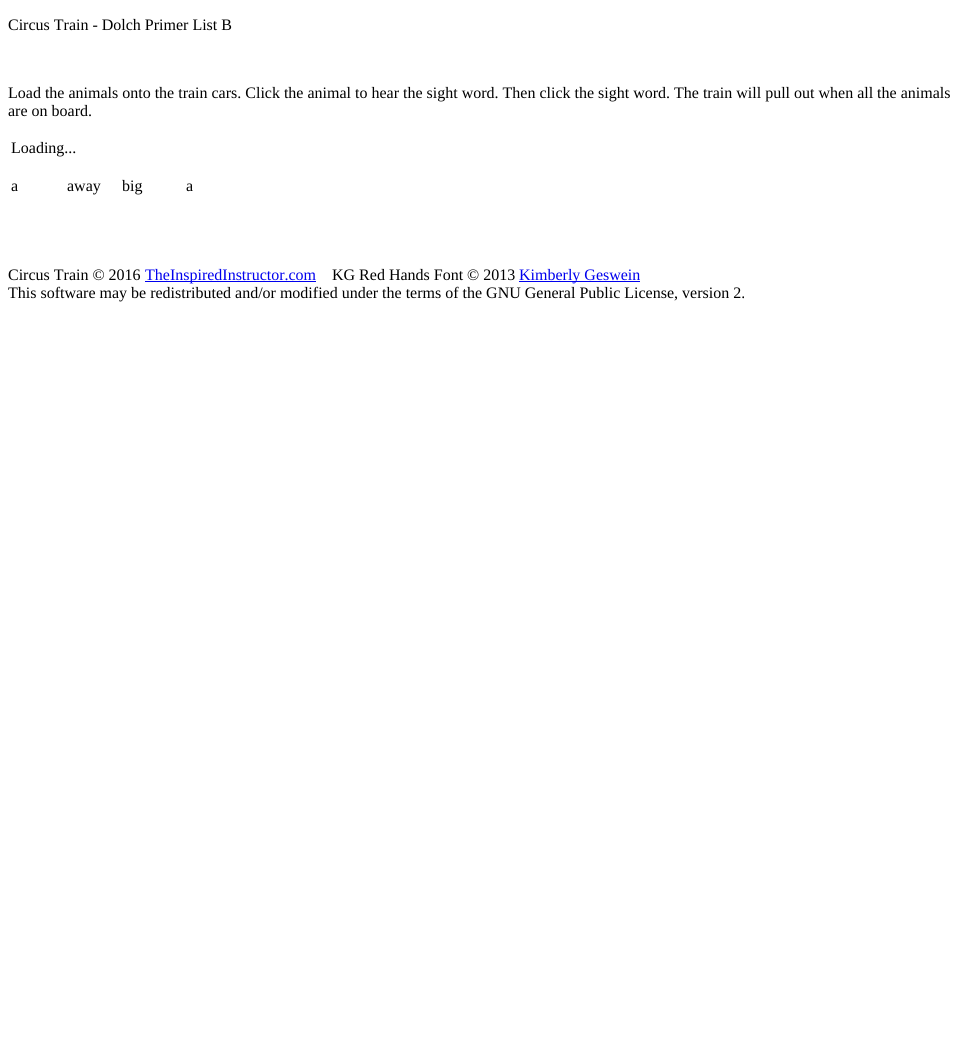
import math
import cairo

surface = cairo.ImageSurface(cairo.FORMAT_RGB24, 972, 1046)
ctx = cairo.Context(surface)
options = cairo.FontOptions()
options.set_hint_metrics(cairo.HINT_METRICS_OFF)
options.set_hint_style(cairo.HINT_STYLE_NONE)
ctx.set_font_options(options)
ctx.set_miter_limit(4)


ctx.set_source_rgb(1, 1, 1)
ctx.paint()
ctx.select_font_face("Liberation Serif")
ctx.set_font_size(16)
ctx.set_source_rgb(0, 0, 0)
ctx.move_to(8, 30)
ctx.show_text("Circus Train - Dolch Primer List B")
ctx.move_to(8, 98)
ctx.show_text("Load the animals onto the train cars. Click the animal to hear the sight word. Then click the sight word. The train will pull out when all the animals")
ctx.move_to(8, 116)
ctx.show_text("are on board.")
ctx.move_to(11, 153)
ctx.show_text("Loading...")
ctx.move_to(11, 191)
ctx.show_text("a")
ctx.move_to(67, 191)
ctx.show_text("away")
ctx.move_to(122, 191)
ctx.show_text("big")
ctx.move_to(186, 191)
ctx.show_text("a")
ctx.move_to(8, 280)
ctx.show_text("Circus Train © 2016")
ctx.set_source_rgb(0, 0, 0.933)
ctx.rectangle(145, 281, 171, 1)
ctx.fill()
ctx.move_to(145, 280)
ctx.show_text("TheInspiredInstructor.com")
ctx.set_source_rgb(0, 0, 0)
ctx.move_to(332, 280)
ctx.show_text("KG Red Hands Font © 2013")
ctx.set_source_rgb(0, 0, 0.933)
ctx.rectangle(519, 281, 121, 1)
ctx.fill()
ctx.move_to(519, 280)
ctx.show_text("Kimberly Geswein")
ctx.set_source_rgb(0, 0, 0)
ctx.move_to(8, 298)
ctx.show_text("This software may be redistributed and/or modified under the terms of the GNU General Public License, version 2.")
surface.write_to_png("page.png")
